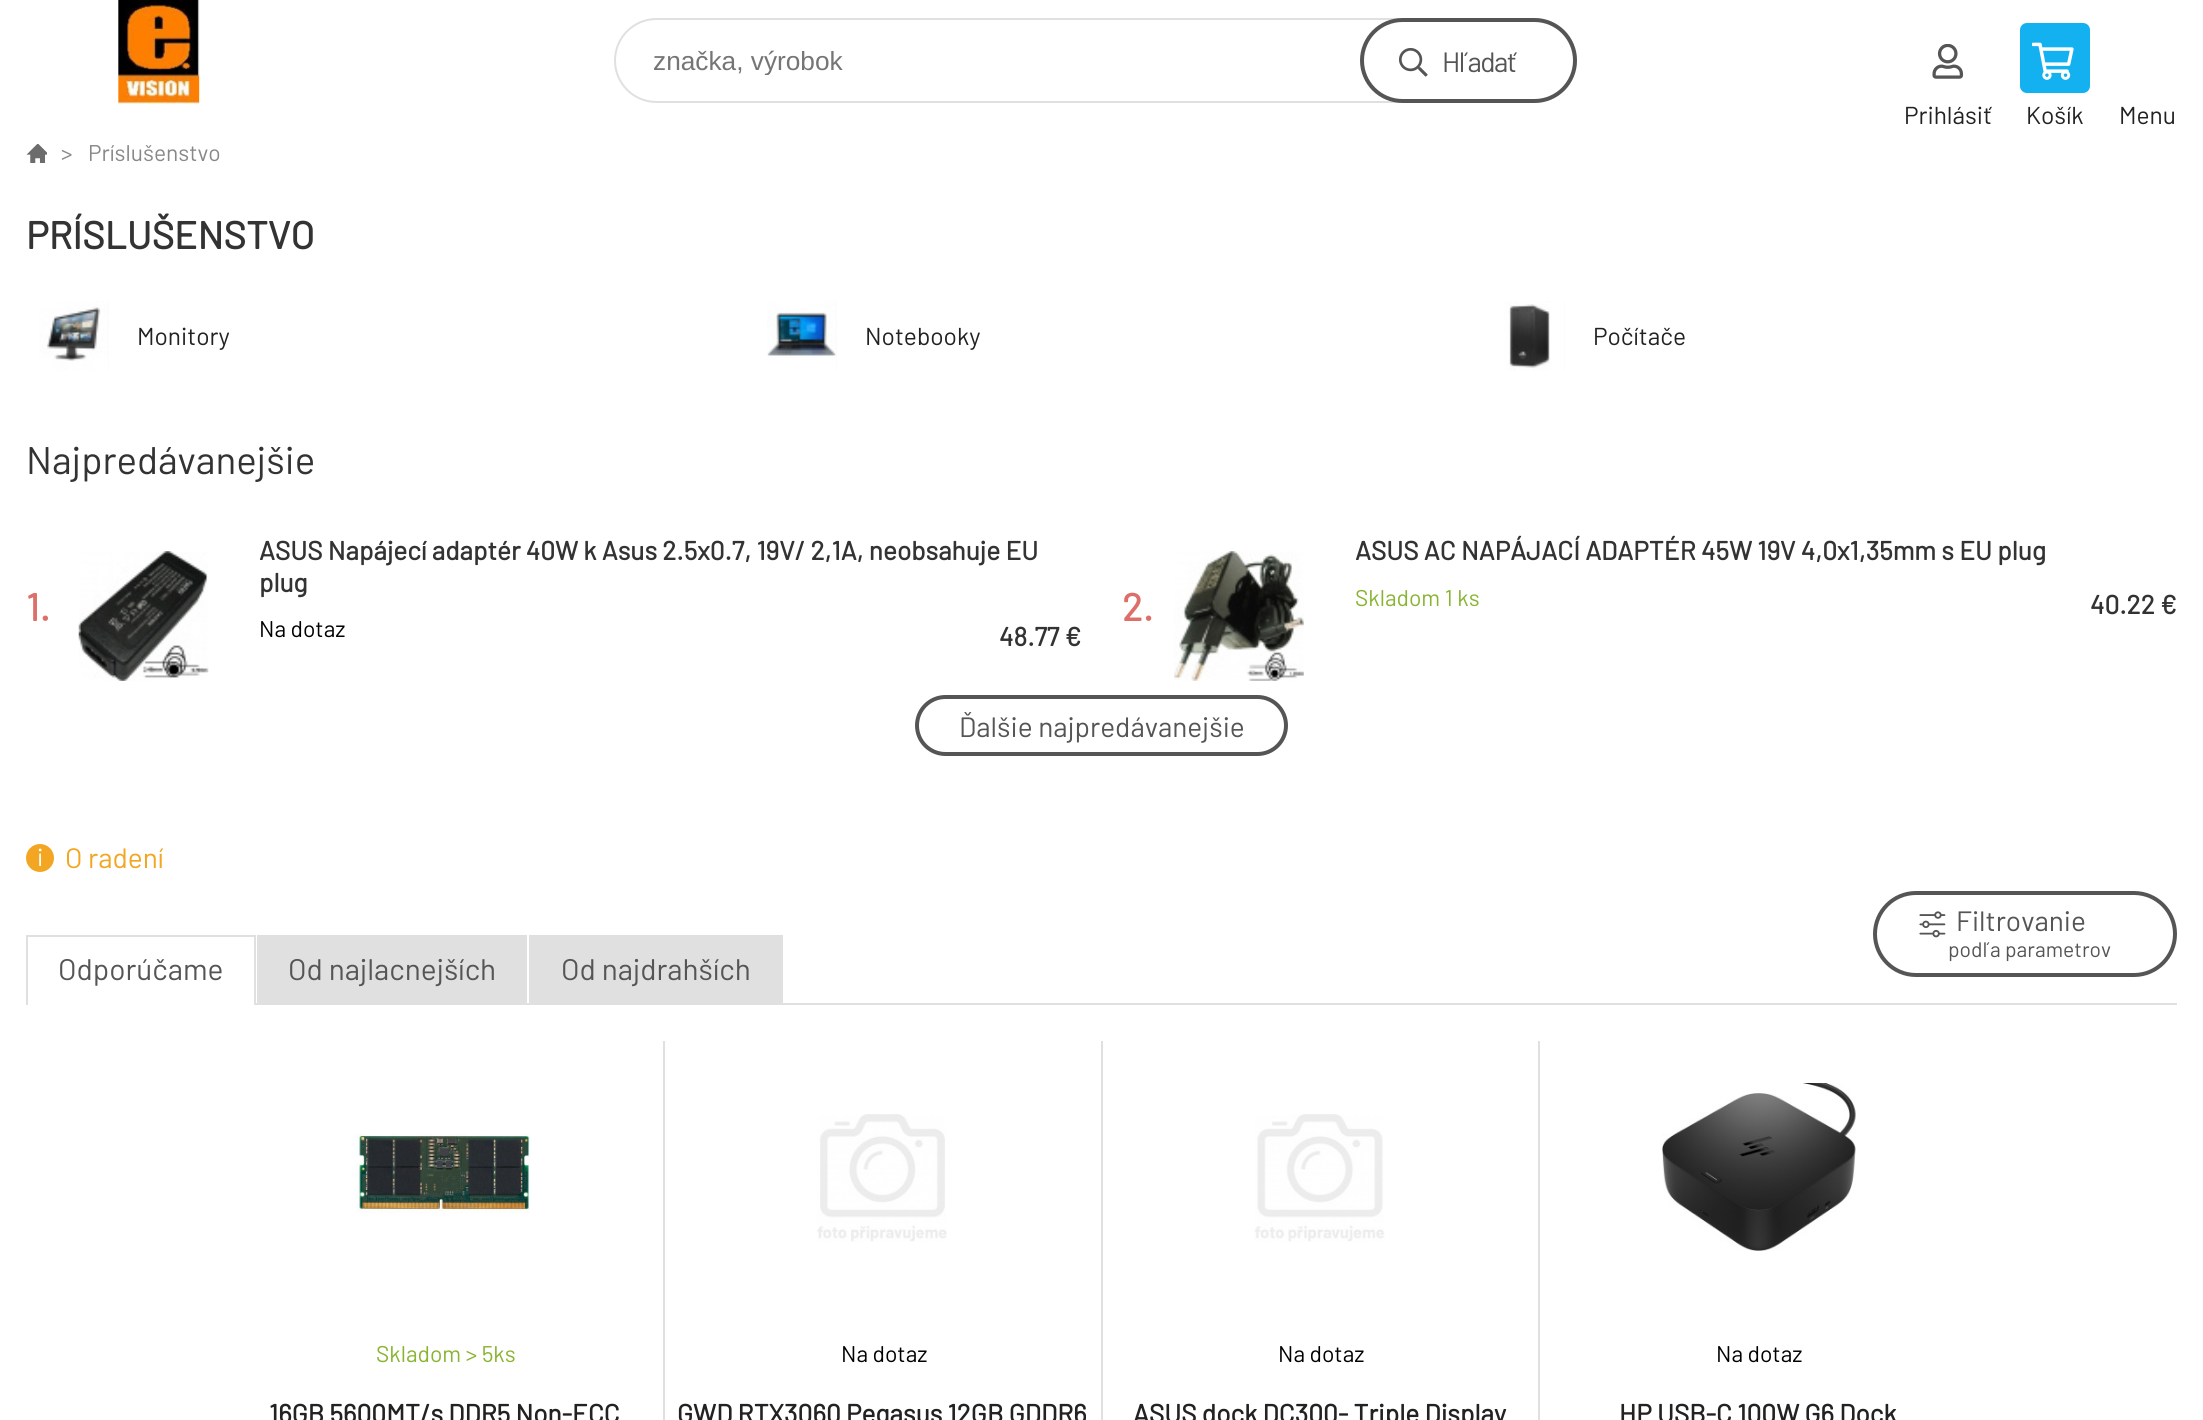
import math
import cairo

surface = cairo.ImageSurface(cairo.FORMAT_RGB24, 2203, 1420)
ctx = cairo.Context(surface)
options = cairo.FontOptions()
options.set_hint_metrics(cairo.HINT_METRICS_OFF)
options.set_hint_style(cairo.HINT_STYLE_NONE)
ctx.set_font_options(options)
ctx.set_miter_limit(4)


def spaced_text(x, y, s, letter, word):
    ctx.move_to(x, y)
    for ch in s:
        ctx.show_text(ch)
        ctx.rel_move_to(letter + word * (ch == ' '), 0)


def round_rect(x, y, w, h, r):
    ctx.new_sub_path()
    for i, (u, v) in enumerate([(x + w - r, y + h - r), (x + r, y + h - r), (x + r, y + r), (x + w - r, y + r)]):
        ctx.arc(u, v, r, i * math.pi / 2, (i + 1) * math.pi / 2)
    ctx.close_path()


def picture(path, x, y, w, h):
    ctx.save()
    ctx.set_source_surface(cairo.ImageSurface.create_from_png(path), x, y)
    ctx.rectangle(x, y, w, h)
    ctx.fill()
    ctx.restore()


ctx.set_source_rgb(1, 1, 1)
ctx.paint()
picture("img1.png", 118, 0, 82, 104)
round_rect(615, 19, 961, 83, 41.5)
ctx.set_source_rgb(0.878, 0.878, 0.878)
ctx.stroke()
ctx.save()
ctx.rectangle(653, 46, 695, 29)
ctx.clip()
ctx.select_font_face("Liberation Sans")
ctx.set_font_size(26.25)
ctx.set_source_rgb(0.459, 0.459, 0.459)
ctx.move_to(653, 70)
ctx.show_text("značka, výrobok")
ctx.restore()
picture("img2.png", 1398, 48, 30, 29)
round_rect(1362, 20, 213, 81, 40.5)
ctx.set_source_rgb(0.333, 0.333, 0.333)
ctx.set_line_width(4)
ctx.stroke()
ctx.select_font_face("Barlow")
ctx.set_font_size(28)
spaced_text(1442, 72, "Hľadať", -1.5, 0)
picture("img3.png", 1932, 44, 32, 35)
ctx.set_font_size(24.5)
ctx.set_source_rgb(0.133, 0.133, 0.133)
ctx.move_to(1904, 124)
ctx.show_text("Prihlásiť")
ctx.set_source_rgb(0.078, 0.694, 0.937)
round_rect(2020, 23, 70, 70, 7)
ctx.fill()
picture("img4.png", 2032, 42, 42, 38)
ctx.set_source_rgb(0.133, 0.133, 0.133)
ctx.move_to(2026, 124)
ctx.show_text("Košík")
ctx.move_to(2119, 124)
ctx.show_text("Menu")
picture("img5.png", 26, 144, 21, 19)
ctx.set_font_size(22.75)
ctx.set_source_rgb(0.533, 0.533, 0.533)
ctx.move_to(61, 161)
ctx.show_text(">")
ctx.move_to(88, 161)
ctx.show_text("Príslušenstvo")
ctx.select_font_face("Barlow", cairo.FONT_SLANT_NORMAL, cairo.FONT_WEIGHT_BOLD)
ctx.set_font_size(38.5)
ctx.set_source_rgb(0.2, 0.2, 0.2)
ctx.move_to(26, 249)
ctx.show_text("PRÍSLUŠENSTVO")
ctx.set_source_rgb(0.969, 0.969, 0.969)
ctx.rectangle(108, 301, 1, 70)
ctx.fill()
picture("img6.png", 39, 301, 70, 70)
ctx.select_font_face("Barlow")
ctx.set_font_size(24.5)
ctx.set_source_rgb(0.133, 0.133, 0.133)
ctx.move_to(137, 345)
ctx.show_text("Monitory")
ctx.set_source_rgb(0.969, 0.969, 0.969)
ctx.rectangle(836, 301, 1, 70)
ctx.fill()
picture("img7.png", 767, 301, 70, 70)
ctx.set_source_rgb(0.133, 0.133, 0.133)
ctx.move_to(865, 345)
ctx.show_text("Notebooky")
ctx.set_source_rgb(0.969, 0.969, 0.969)
ctx.rectangle(1564, 301, 1, 70)
ctx.fill()
picture("img8.png", 1495, 301, 70, 70)
ctx.set_source_rgb(0.133, 0.133, 0.133)
ctx.move_to(1593, 345)
ctx.show_text("Počítače")
ctx.set_font_size(38.5)
ctx.set_source_rgb(0.2, 0.2, 0.2)
ctx.move_to(26, 474)
ctx.show_text("Najpredávanejšie")
ctx.select_font_face("Barlow", cairo.FONT_SLANT_NORMAL, cairo.FONT_WEIGHT_BOLD)
ctx.set_source_rgb(0.863, 0.435, 0.412)
ctx.move_to(26, 621)
ctx.show_text("1.")
picture("img9.png", 78, 551, 131, 130)
ctx.set_font_size(26.25)
ctx.set_source_rgb(0.2, 0.2, 0.2)
ctx.move_to(259, 560)
ctx.show_text("ASUS Napájecí adaptér 40W k Asus 2.5x0.7, 19V/ 2,1A, neobsahuje EU")
ctx.move_to(259, 592)
ctx.show_text("plug")
ctx.select_font_face("Barlow")
ctx.set_font_size(22.75)
ctx.set_source_rgb(0, 0, 0)
ctx.move_to(259, 637)
ctx.show_text("Na dotaz")
ctx.select_font_face("Barlow", cairo.FONT_SLANT_NORMAL, cairo.FONT_WEIGHT_BOLD)
ctx.set_font_size(26.25)
ctx.set_source_rgb(0.2, 0.2, 0.2)
ctx.move_to(999, 646)
ctx.show_text("48.77 €")
ctx.set_font_size(38.5)
ctx.set_source_rgb(0.863, 0.435, 0.412)
ctx.move_to(1122, 621)
ctx.show_text("2.")
picture("img10.png", 1174, 551, 130, 130)
ctx.set_font_size(26.25)
ctx.set_source_rgb(0.2, 0.2, 0.2)
ctx.move_to(1355, 560)
ctx.show_text("ASUS AC NAPÁJACÍ ADAPTÉR 45W 19V 4,0x1,35mm s EU plug")
ctx.select_font_face("Barlow")
ctx.set_font_size(22.75)
ctx.set_source_rgb(0.537, 0.706, 0.196)
ctx.move_to(1355, 606)
ctx.show_text("Skladom 1 ks")
ctx.select_font_face("Barlow", cairo.FONT_SLANT_NORMAL, cairo.FONT_WEIGHT_BOLD)
ctx.set_font_size(26.25)
ctx.set_source_rgb(0.2, 0.2, 0.2)
ctx.move_to(2090, 614)
ctx.show_text("40.22 €")
round_rect(917, 697, 369, 57, 28.5)
ctx.set_source_rgb(0.333, 0.333, 0.333)
ctx.stroke()
ctx.select_font_face("Barlow")
ctx.set_font_size(28)
ctx.move_to(959, 737)
ctx.show_text("Ďalšie najpredávanejšie")
ctx.set_source_rgb(0.878, 0.878, 0.878)
ctx.rectangle(26, 1003, 2151, 2)
ctx.fill()
ctx.set_source_rgb(0.949, 0.651, 0.129)
ctx.arc(40, 858, 14, 0, 2 * math.pi)
ctx.fill()
ctx.set_font_size(24.5)
ctx.set_source_rgb(1, 1, 1)
ctx.move_to(37, 866)
ctx.show_text("i")
ctx.set_font_size(28)
ctx.set_source_rgb(0.949, 0.651, 0.129)
ctx.move_to(65, 868)
ctx.show_text("O radení")
picture("img11.png", 1919, 911, 27, 27)
round_rect(1875, 893, 300, 82, 41)
ctx.set_source_rgb(0.333, 0.333, 0.333)
ctx.stroke()
ctx.move_to(1956, 931)
ctx.show_text("Filtrovanie")
ctx.set_font_size(21)
ctx.move_to(1948, 957)
ctx.show_text("podľa parametrov")
ctx.set_source_rgb(0.878, 0.878, 0.878)
ctx.rectangle(26, 935, 230, 2)
ctx.fill()
ctx.rectangle(254, 935, 2, 68)
ctx.fill()
ctx.rectangle(26, 935, 2, 68)
ctx.fill()
ctx.set_font_size(29.75)
ctx.set_source_rgb(0.333, 0.333, 0.333)
ctx.move_to(58, 980)
ctx.show_text("Odporúčame")
ctx.set_source_rgb(1, 1, 1)
ctx.rectangle(28, 1003, 226, 2)
ctx.fill()
ctx.set_source_rgb(0.878, 0.878, 0.878)
ctx.rectangle(257, 935, 270, 68)
ctx.fill()
ctx.set_source_rgb(0.333, 0.333, 0.333)
ctx.move_to(288, 980)
ctx.show_text("Od najlacnejších")
ctx.set_source_rgb(0.878, 0.878, 0.878)
ctx.rectangle(529, 935, 254, 68)
ctx.fill()
ctx.set_source_rgb(0.333, 0.333, 0.333)
ctx.move_to(561, 980)
ctx.show_text("Od najdrahších")
ctx.set_source_rgb(0.878, 0.878, 0.878)
ctx.rectangle(663, 1041, 2, 379)
ctx.fill()
picture("img12.png", 354, 1133, 176, 81)
ctx.set_font_size(22.75)
ctx.set_source_rgb(0.537, 0.706, 0.196)
ctx.move_to(376, 1362)
ctx.show_text("Skladom > 5ks")
ctx.select_font_face("Barlow", cairo.FONT_SLANT_NORMAL, cairo.FONT_WEIGHT_BOLD)
ctx.set_font_size(26.25)
ctx.set_source_rgb(0.133, 0.133, 0.133)
ctx.move_to(269, 1423)
ctx.show_text("16GB 5600MT/s DDR5 Non-ECC")
ctx.set_source_rgb(0.878, 0.878, 0.878)
ctx.rectangle(1101, 1041, 2, 379)
ctx.fill()
picture("img13.png", 817, 1114, 130, 128)
ctx.select_font_face("Barlow")
ctx.set_font_size(22.75)
ctx.set_source_rgb(0, 0, 0)
ctx.move_to(841, 1362)
ctx.show_text("Na dotaz")
ctx.select_font_face("Barlow", cairo.FONT_SLANT_NORMAL, cairo.FONT_WEIGHT_BOLD)
ctx.set_font_size(26.25)
ctx.set_source_rgb(0.133, 0.133, 0.133)
ctx.move_to(677, 1423)
ctx.show_text("GWD RTX3060 Pegasus 12GB GDDR6")
ctx.set_source_rgb(0.878, 0.878, 0.878)
ctx.rectangle(1538, 1041, 2, 379)
ctx.fill()
picture("img14.png", 1254, 1114, 131, 128)
ctx.select_font_face("Barlow")
ctx.set_font_size(22.75)
ctx.set_source_rgb(0, 0, 0)
ctx.move_to(1278, 1362)
ctx.show_text("Na dotaz")
ctx.select_font_face("Barlow", cairo.FONT_SLANT_NORMAL, cairo.FONT_WEIGHT_BOLD)
ctx.set_font_size(26.25)
ctx.set_source_rgb(0.133, 0.133, 0.133)
ctx.move_to(1133, 1423)
ctx.show_text("ASUS dock DC300- Triple Display")
picture("img15.png", 1662, 1083, 194, 168)
ctx.select_font_face("Barlow")
ctx.set_font_size(22.75)
ctx.set_source_rgb(0, 0, 0)
ctx.move_to(1716, 1362)
ctx.show_text("Na dotaz")
ctx.select_font_face("Barlow", cairo.FONT_SLANT_NORMAL, cairo.FONT_WEIGHT_BOLD)
ctx.set_font_size(26.25)
ctx.set_source_rgb(0.133, 0.133, 0.133)
ctx.move_to(1619, 1423)
ctx.show_text("HP USB-C 100W G6 Dock")
surface.write_to_png("page.png")
